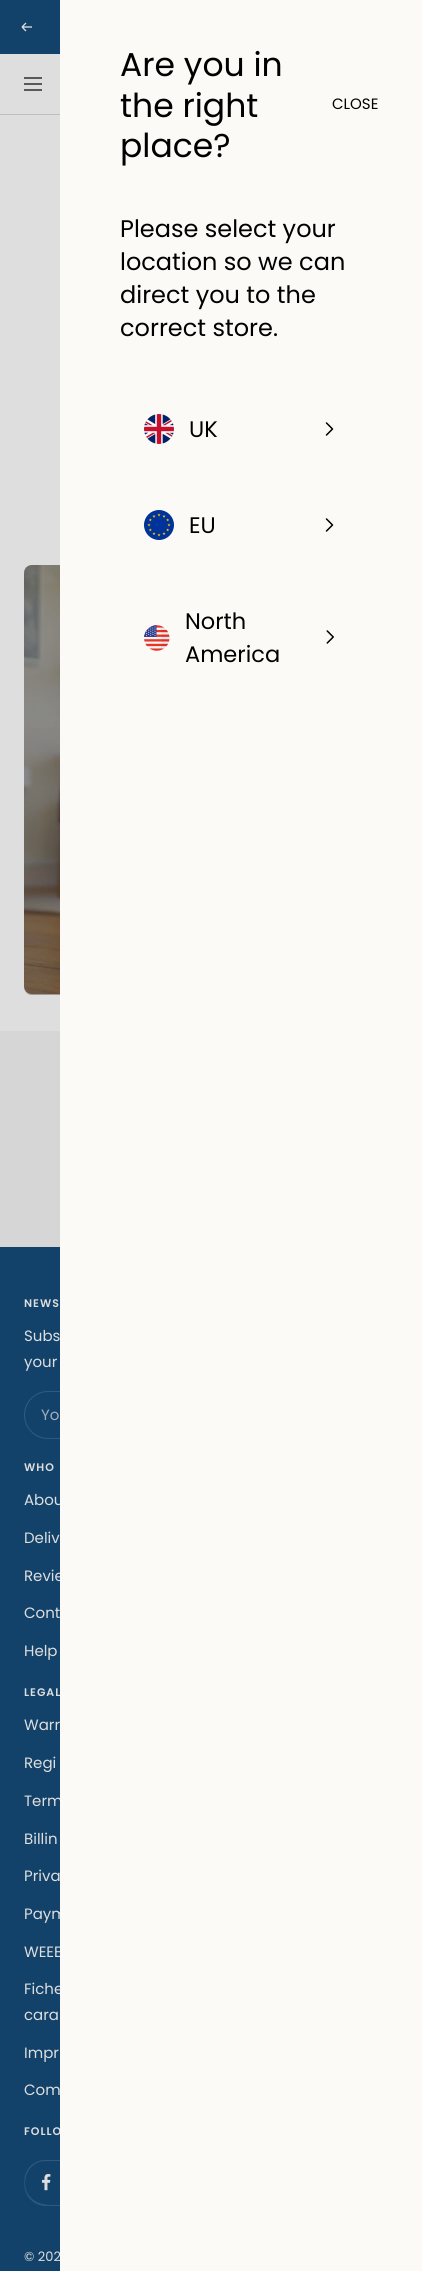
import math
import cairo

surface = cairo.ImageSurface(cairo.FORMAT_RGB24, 422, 2271)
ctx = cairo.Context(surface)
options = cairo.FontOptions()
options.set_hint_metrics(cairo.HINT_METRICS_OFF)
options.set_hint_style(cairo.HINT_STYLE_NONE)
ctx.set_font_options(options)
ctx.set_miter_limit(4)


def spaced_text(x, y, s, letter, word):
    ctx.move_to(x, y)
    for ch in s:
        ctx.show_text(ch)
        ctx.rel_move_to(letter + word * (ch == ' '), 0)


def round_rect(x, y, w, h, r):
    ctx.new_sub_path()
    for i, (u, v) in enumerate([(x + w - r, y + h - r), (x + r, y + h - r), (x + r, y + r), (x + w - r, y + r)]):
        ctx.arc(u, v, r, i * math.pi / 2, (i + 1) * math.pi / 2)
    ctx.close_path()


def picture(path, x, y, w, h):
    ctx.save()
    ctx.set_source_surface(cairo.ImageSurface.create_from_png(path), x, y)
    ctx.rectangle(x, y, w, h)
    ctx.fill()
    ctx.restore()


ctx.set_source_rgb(0.871, 0.871, 0.871)
ctx.paint()
ctx.set_source_rgb(0.071, 0.259, 0.416)
ctx.rectangle(0, 0, 60, 54)
ctx.fill()
ctx.new_path()
ctx.move_to(32, 27)
ctx.line_to(22, 27)
ctx.move_to(22, 27)
ctx.line_to(26, 31)
ctx.move_to(22, 27)
ctx.line_to(26, 23)
ctx.set_source_rgb(0.871, 0.871, 0.871)
ctx.set_line_width(1.3)
ctx.stroke()
ctx.set_source_rgb(0.749, 0.749, 0.753)
ctx.rectangle(0, 114, 60, 1)
ctx.fill()
ctx.new_path()
ctx.move_to(24, 78)
ctx.line_to(42, 78)
ctx.move_to(24, 90)
ctx.line_to(42, 90)
ctx.close_path()
ctx.move_to(24, 84)
ctx.line_to(42, 84)
ctx.close_path()
ctx.set_source_rgb(0.071, 0.071, 0.071)
ctx.stroke()
ctx.set_source_rgb(0.839, 0.839, 0.839)
round_rect(24, 565, 338, 430, 8)
ctx.fill()
picture("img6.png", 24, 565, 36, 429)
ctx.set_source_rgba(0.071, 0.071, 0.071, 0.3)
round_rect(24, 565, 338, 430, 8)
ctx.fill()
ctx.set_source_rgb(0.071, 0.259, 0.416)
ctx.rectangle(0, 1247, 60, 1024)
ctx.fill()
round_rect(24.5, 1391.5, 324, 47, 23.5)
ctx.set_source_rgb(0.188, 0.353, 0.486)
ctx.set_line_width(1)
ctx.stroke()
ctx.select_font_face("Poppins")
ctx.set_font_size(15)
ctx.set_source_rgb(0.871, 0.871, 0.871)
ctx.move_to(24, 1505)
ctx.show_text("Abou")
ctx.move_to(24, 1581)
ctx.show_text("Revie")
ctx.select_font_face("Poppins SemiBold")
ctx.set_font_size(11)
spaced_text(24, 1696, "LEGAL", 1, 0)
ctx.select_font_face("Poppins")
ctx.set_font_size(15)
ctx.move_to(24, 1806)
ctx.show_text("Term")
ctx.move_to(24, 1919)
ctx.show_text("Paym")
ctx.move_to(24, 1957)
ctx.show_text("WEEE")
ctx.move_to(24, 1994)
ctx.show_text("Fiche")
ctx.select_font_face("Poppins SemiBold")
ctx.set_font_size(11)
spaced_text(24, 2135, "FOLLO", 1, 0)
ctx.set_source_rgb(0.188, 0.353, 0.486)
ctx.new_path()
ctx.move_to(24, 2183)
ctx.line_to(24, 2184)
ctx.curve_to(24, 2196, 34, 2206, 46, 2206)
ctx.line_to(69, 2206)
ctx.line_to(69, 2205)
ctx.line_to(46, 2205)
ctx.curve_to(34, 2205, 24, 2195, 24, 2183)
ctx.close_path()
ctx.move_to(46, 2161)
ctx.line_to(69, 2161)
ctx.line_to(69, 2160)
ctx.line_to(46, 2160)
ctx.curve_to(34, 2160, 24, 2170, 24, 2182)
ctx.curve_to(25, 2171, 33, 2161, 46, 2161)
ctx.close_path()
ctx.fill()
ctx.select_font_face("Poppins")
ctx.set_font_size(13)
ctx.set_source_rgb(0.871, 0.871, 0.871)
ctx.move_to(24, 2261)
ctx.show_text("© 202")
ctx.set_source_rgb(0.988, 0.98, 0.965)
ctx.rectangle(60, 0, 362, 2271)
ctx.fill()
ctx.set_font_size(33)
ctx.set_source_rgb(0, 0, 0)
ctx.move_to(120, 76)
ctx.show_text("Are you in")
ctx.move_to(120, 117)
ctx.show_text("the right")
ctx.move_to(120, 157)
ctx.show_text("place?")
ctx.set_font_size(15)
ctx.move_to(332, 109)
ctx.show_text("CLOSE")
ctx.set_font_size(24)
ctx.move_to(120, 237)
ctx.show_text("Please select your")
ctx.move_to(120, 270)
ctx.show_text("location so we can")
ctx.move_to(120, 303)
ctx.show_text("direct you to the")
ctx.move_to(120, 336)
ctx.show_text("correct store.")
picture("img1.png", 144, 414, 30, 30)
ctx.set_font_size(22.5)
ctx.move_to(189, 437)
ctx.show_text("UK")
picture("img2.png", 325, 422, 9, 14)
picture("img3.png", 144, 510, 30, 30)
ctx.move_to(189, 533)
ctx.show_text("EU")
picture("img2.png", 325, 518, 9, 14)
picture("img4.png", 144, 625, 26, 26)
ctx.move_to(185, 629)
ctx.show_text("North")
ctx.move_to(185, 662)
ctx.show_text("America")
picture("img5.png", 326, 630, 8, 14)
ctx.set_source_rgb(0.839, 0.839, 0.839)
ctx.rectangle(0, 1031, 60, 216)
ctx.fill()
ctx.select_font_face("Poppins SemiBold")
ctx.set_font_size(11)
ctx.set_source_rgb(0.871, 0.871, 0.871)
spaced_text(24, 1307, "NEWS", 1, 0)
ctx.select_font_face("Poppins")
ctx.set_font_size(15)
ctx.move_to(24, 1341)
ctx.show_text("Subs")
ctx.move_to(24, 1367)
ctx.show_text("your")
ctx.set_source_rgb(0.631, 0.686, 0.737)
ctx.move_to(41, 1420)
ctx.show_text("Yo")
ctx.select_font_face("Poppins SemiBold")
ctx.set_font_size(11)
ctx.set_source_rgb(0.871, 0.871, 0.871)
spaced_text(24, 1471, "WHO", 1, 0)
ctx.select_font_face("Poppins")
ctx.set_font_size(15)
ctx.move_to(24, 1543)
ctx.show_text("Deliv")
ctx.move_to(24, 1618)
ctx.show_text("Cont")
ctx.move_to(24, 1656)
ctx.show_text("Help")
ctx.move_to(24, 1730)
ctx.show_text("Warr")
ctx.move_to(24, 1768)
ctx.show_text("Regi")
ctx.move_to(24, 1844)
ctx.show_text("Billin")
ctx.move_to(24, 1881)
ctx.show_text("Priva")
ctx.move_to(24, 2020)
ctx.show_text("cara")
ctx.move_to(24, 2058)
ctx.show_text("Impr")
ctx.move_to(24, 2095)
ctx.show_text("Com")
ctx.set_source_rgb(0.188, 0.353, 0.486)
ctx.new_path()
ctx.move_to(46, 2160)
ctx.curve_to(20, 2160, 16, 2199, 42, 2205)
ctx.line_to(50, 2205)
ctx.curve_to(46, 2205, 42, 2204, 39, 2203)
ctx.curve_to(16, 2194, 23, 2160, 48, 2160)
ctx.close_path()
ctx.fill()
picture("img7.png", 42, 2174, 9, 17)
surface.write_to_png("page.png")
